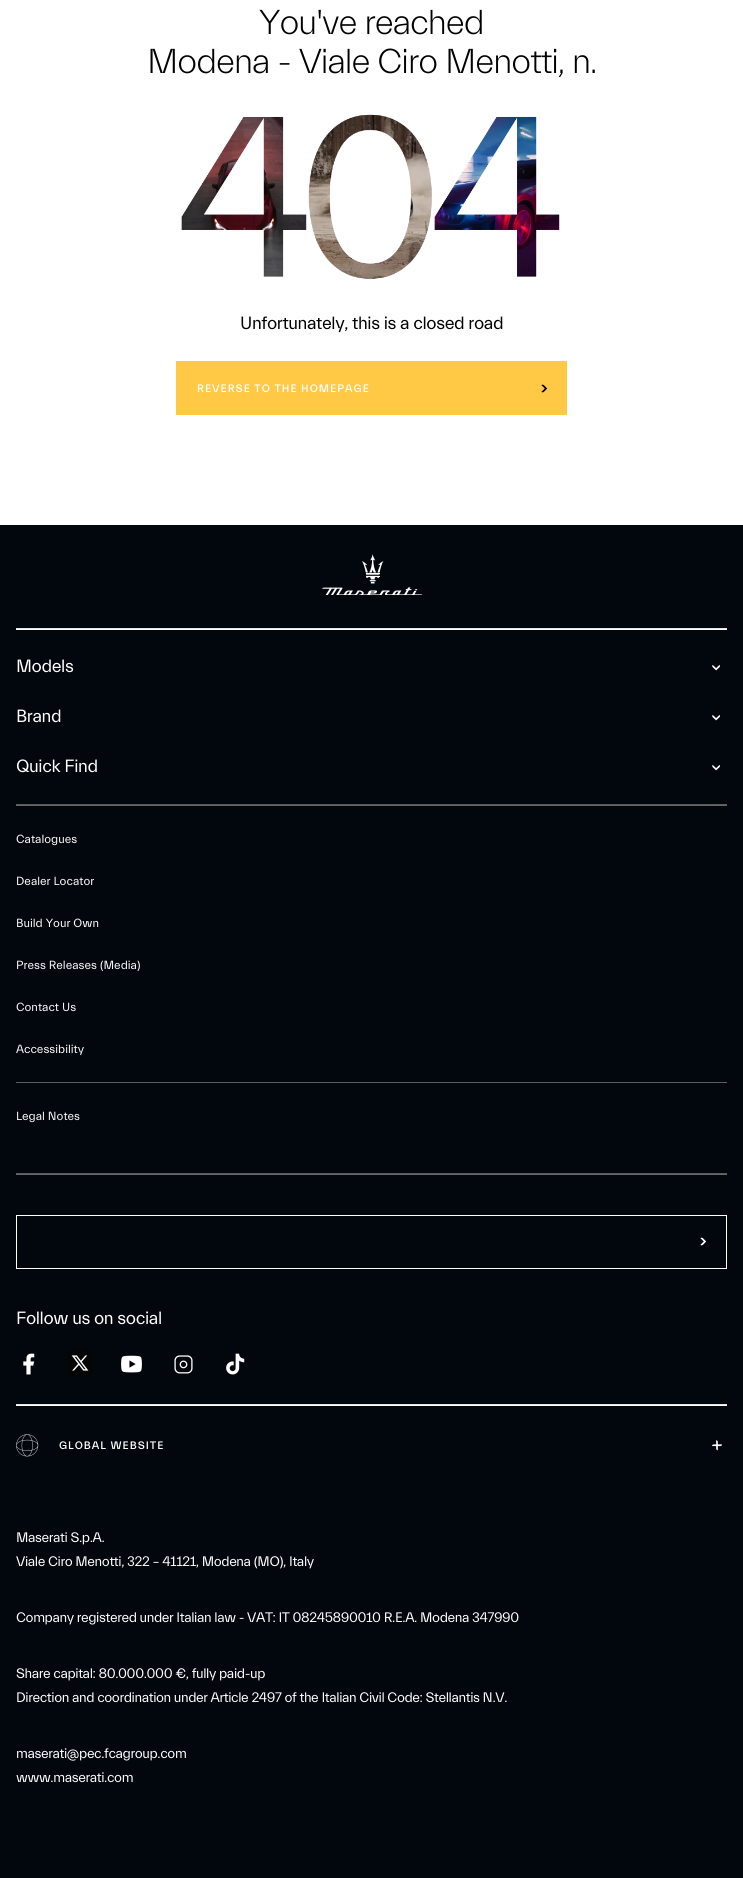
import math
import cairo

surface = cairo.ImageSurface(cairo.FORMAT_RGB24, 743, 1878)
ctx = cairo.Context(surface)
options = cairo.FontOptions()
options.set_hint_metrics(cairo.HINT_METRICS_OFF)
options.set_hint_style(cairo.HINT_STYLE_NONE)
ctx.set_font_options(options)
ctx.set_miter_limit(4)


def spaced_text(x, y, s, letter, word):
    ctx.move_to(x, y)
    for ch in s:
        ctx.show_text(ch)
        ctx.rel_move_to(letter + word * (ch == ' '), 0)


def picture(path, x, y, w, h):
    ctx.save()
    ctx.set_source_surface(cairo.ImageSurface.create_from_png(path), x, y)
    ctx.rectangle(x, y, w, h)
    ctx.fill()
    ctx.restore()


ctx.set_source_rgb(1, 1, 1)
ctx.paint()
ctx.select_font_face("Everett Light")
ctx.set_font_size(35)
ctx.set_source_rgb(0, 0, 0)
spaced_text(259, 34, "You've reached", -1, 0)
spaced_text(147, 73, "Modena - Viale Ciro Menotti, n.", -1, 0)
picture("img1.png", 181, 114, 379, 166)
ctx.select_font_face("Everett")
ctx.set_font_size(18)
spaced_text(240, 329, "Unfortunately, this is a closed road", -0.4, 0)
ctx.set_source_rgb(1, 0.784, 0.271)
ctx.rectangle(176, 361, 391, 54)
ctx.fill()
ctx.select_font_face("Everett Medium")
ctx.set_font_size(11)
gradient = cairo.LinearGradient(568, 402, 175, 375)
gradient.add_color_stop_rgba(0.5, 0, 0, 0, 1)
gradient.add_color_stop_rgba(0.5, 1, 1, 1, 1)
ctx.set_source(gradient)
spaced_text(197, 392, "REVERSE TO THE HOMEPAGE", 1, 0)
picture("img2.png", 541, 384, 7, 9)
ctx.set_source_rgb(0.008, 0.027, 0.051)
ctx.rectangle(0, 525, 743, 1353)
ctx.fill()
picture("img3.png", 322, 554, 100, 41)
ctx.set_source_rgb(1, 1, 1)
ctx.rectangle(16, 629, 711, 1)
ctx.fill()
ctx.set_source_rgb(0.902, 0.902, 0.902)
ctx.rectangle(16, 628, 711, 1)
ctx.fill()
ctx.select_font_face("Everett")
ctx.set_font_size(18)
ctx.set_source_rgb(1, 1, 1)
spaced_text(16, 672, "Models", -0.4, 0)
picture("img4.png", 712, 665, 8, 6)
spaced_text(16, 722, "Brand", -0.4, 0)
picture("img4.png", 712, 715, 8, 6)
spaced_text(16, 772, "Quick Find", -0.4, 0)
picture("img4.png", 712, 765, 8, 6)
ctx.set_source_rgb(0.4, 0.4, 0.4)
ctx.rectangle(16, 805, 711, 1)
ctx.fill()
ctx.set_source_rgb(0.361, 0.361, 0.361)
ctx.rectangle(16, 804, 711, 1)
ctx.fill()
ctx.set_font_size(12)
ctx.set_source_rgb(1, 1, 1)
ctx.move_to(16, 843)
ctx.show_text("Catalogues")
ctx.move_to(16, 885)
ctx.show_text("Dealer Locator")
ctx.move_to(16, 927)
ctx.show_text("Build Your Own")
ctx.move_to(16, 969)
ctx.show_text("Press Releases (Media)")
ctx.move_to(16, 1011)
ctx.show_text("Contact Us")
ctx.move_to(16, 1053)
ctx.show_text("Accessibility")
ctx.set_source_rgb(0.361, 0.361, 0.361)
ctx.rectangle(16, 1082, 711, 1)
ctx.fill()
ctx.set_source_rgb(1, 1, 1)
ctx.move_to(16, 1120)
ctx.show_text("Legal Notes")
ctx.set_source_rgb(0.4, 0.4, 0.4)
ctx.rectangle(16, 1174, 711, 1)
ctx.fill()
ctx.set_source_rgb(0.361, 0.361, 0.361)
ctx.rectangle(16, 1173, 711, 1)
ctx.fill()
ctx.rectangle(16.5, 1215.5, 710, 53)
ctx.set_source_rgb(1, 1, 1)
ctx.set_line_width(1)
ctx.stroke()
picture("img5.png", 700, 1237, 7, 9)
ctx.set_font_size(18)
spaced_text(16, 1324, "Follow us on social", -0.4, 0)
picture("img6.png", 23, 1353, 12, 22)
picture("img7.png", 67, 1350, 26, 26)
picture("img8.png", 121, 1355, 21, 18)
picture("img9.png", 174, 1355, 19, 19)
picture("img10.png", 226, 1353, 19, 22)
ctx.rectangle(16, 1405, 711, 1)
ctx.fill()
ctx.set_source_rgb(0.902, 0.902, 0.902)
ctx.rectangle(16, 1404, 711, 1)
ctx.fill()
picture("img11.png", 16, 1434, 23, 23)
ctx.select_font_face("Everett Medium")
ctx.set_font_size(11)
ctx.set_source_rgb(1, 1, 1)
spaced_text(59, 1449, "GLOBAL WEBSITE", 1, 0)
picture("img12.png", 712, 1440, 10, 11)
ctx.select_font_face("Everett")
ctx.set_font_size(14)
spaced_text(16, 1542, "Maserati S.p.A.", -0.4, 0)
spaced_text(16, 1566, "Viale Ciro Menotti, 322 – 41121, Modena (MO), Italy", -0.4, 0)
spaced_text(16, 1622, "Company registered under Italian law - VAT: IT 08245890010 R.E.A. Modena 347990", -0.4, 0)
spaced_text(16, 1678, "Share capital: 80.000.000 €, fully paid-up", -0.4, 0)
spaced_text(16, 1702, "Direction and coordination under Article 2497 of the Italian Civil Code: Stellantis N.V.", -0.4, 0)
spaced_text(16, 1758, "maserati@pec.fcagroup.com", -0.4, 0)
spaced_text(16, 1782, "www.maserati.com", -0.4, 0)
surface.write_to_png("page.png")
